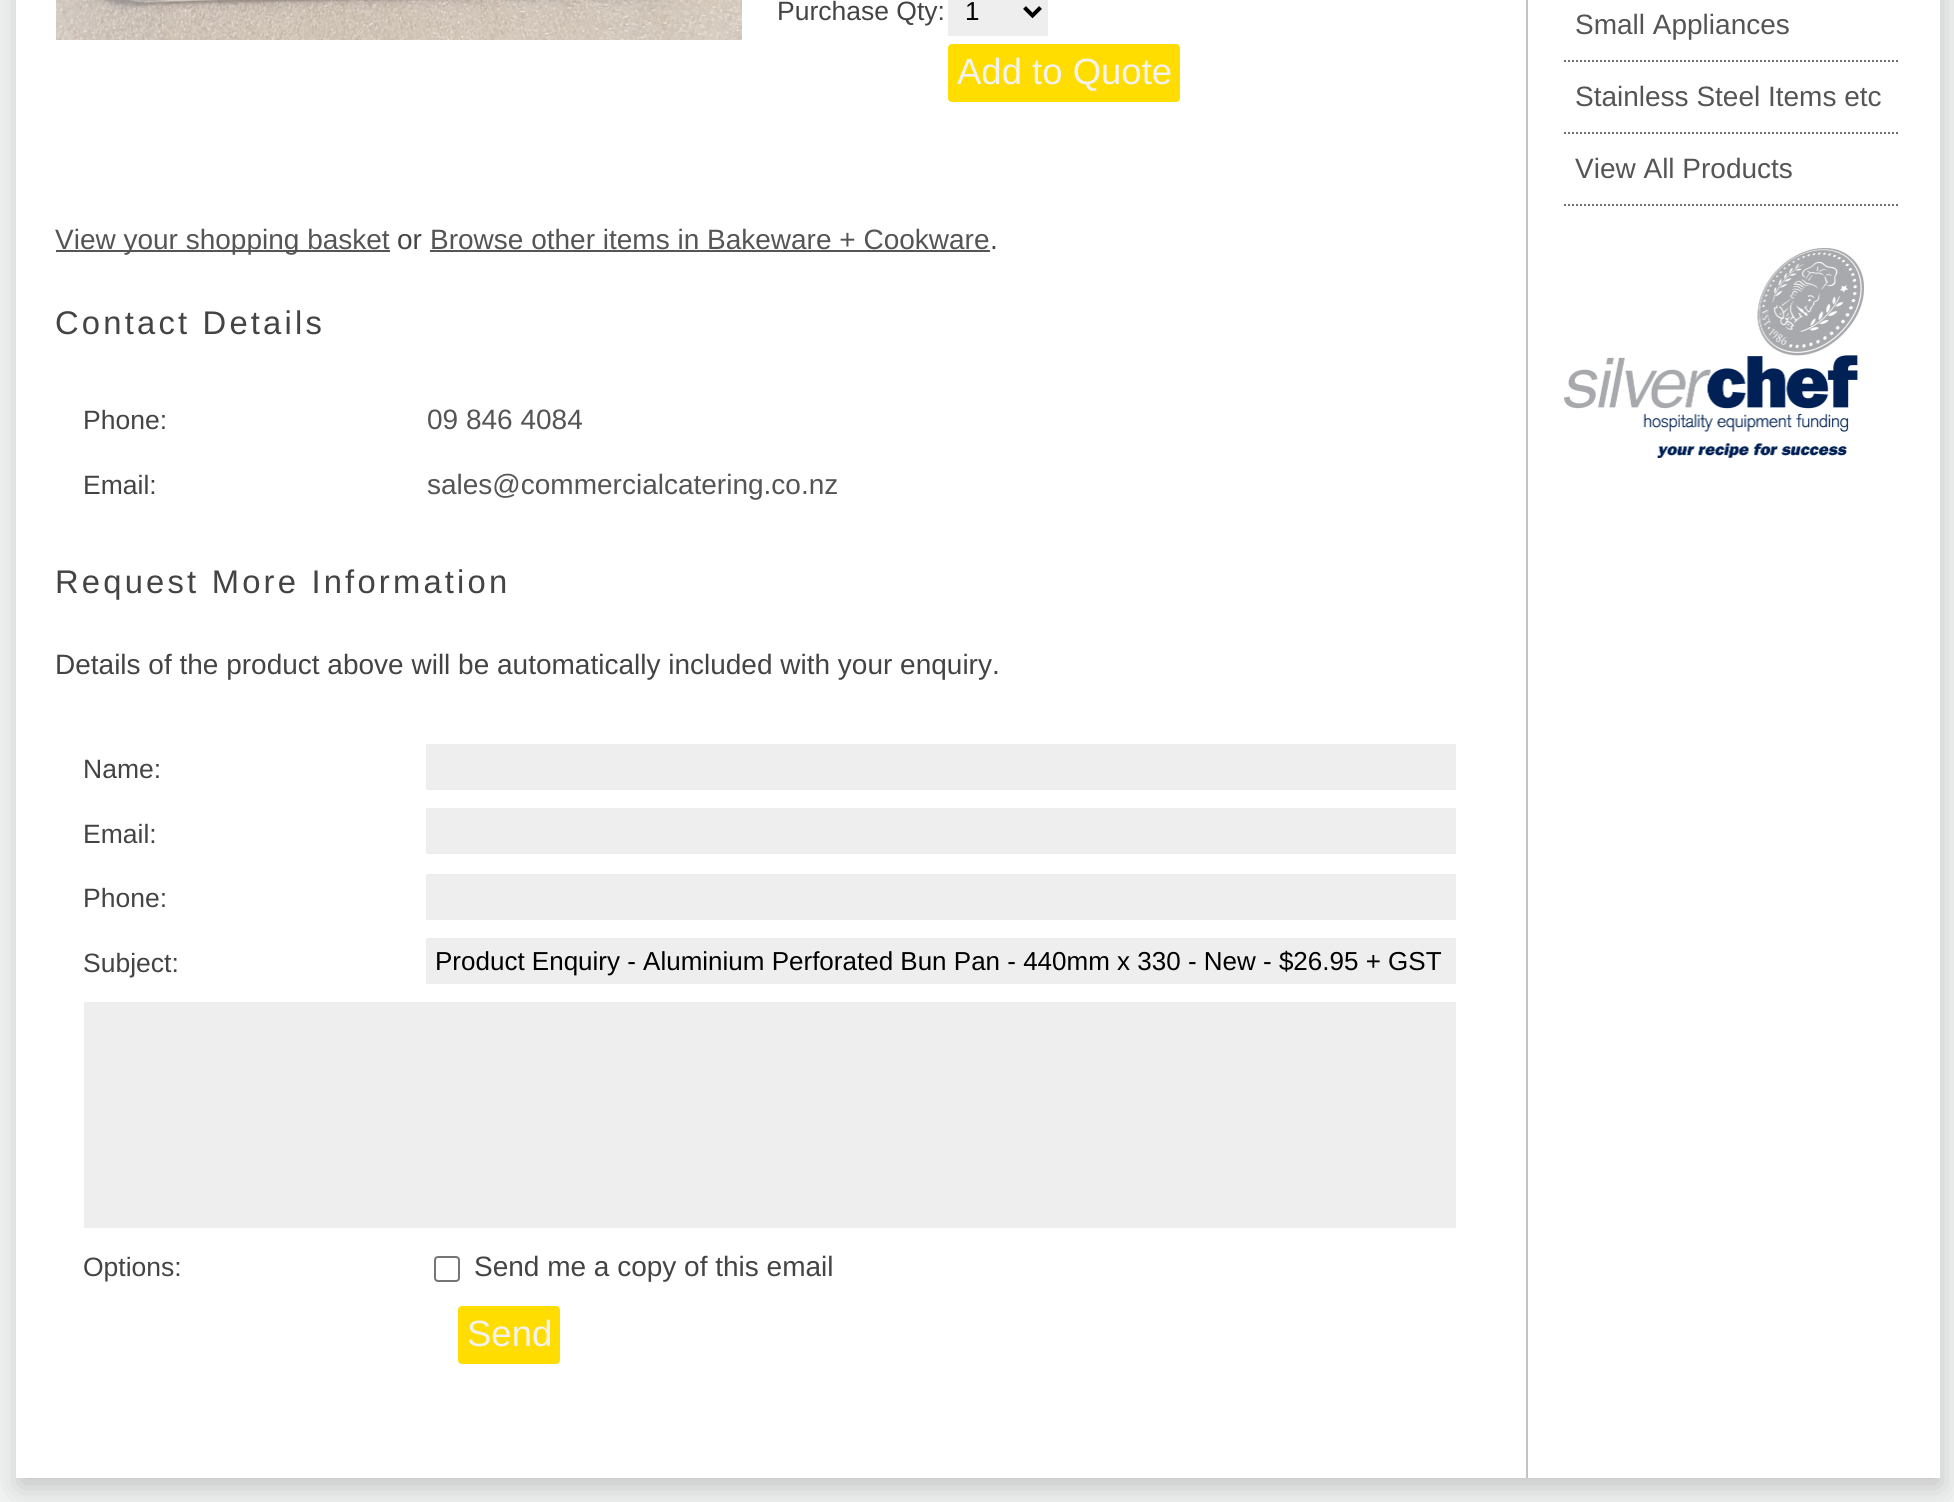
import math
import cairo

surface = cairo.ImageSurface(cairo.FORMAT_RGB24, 1954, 1502)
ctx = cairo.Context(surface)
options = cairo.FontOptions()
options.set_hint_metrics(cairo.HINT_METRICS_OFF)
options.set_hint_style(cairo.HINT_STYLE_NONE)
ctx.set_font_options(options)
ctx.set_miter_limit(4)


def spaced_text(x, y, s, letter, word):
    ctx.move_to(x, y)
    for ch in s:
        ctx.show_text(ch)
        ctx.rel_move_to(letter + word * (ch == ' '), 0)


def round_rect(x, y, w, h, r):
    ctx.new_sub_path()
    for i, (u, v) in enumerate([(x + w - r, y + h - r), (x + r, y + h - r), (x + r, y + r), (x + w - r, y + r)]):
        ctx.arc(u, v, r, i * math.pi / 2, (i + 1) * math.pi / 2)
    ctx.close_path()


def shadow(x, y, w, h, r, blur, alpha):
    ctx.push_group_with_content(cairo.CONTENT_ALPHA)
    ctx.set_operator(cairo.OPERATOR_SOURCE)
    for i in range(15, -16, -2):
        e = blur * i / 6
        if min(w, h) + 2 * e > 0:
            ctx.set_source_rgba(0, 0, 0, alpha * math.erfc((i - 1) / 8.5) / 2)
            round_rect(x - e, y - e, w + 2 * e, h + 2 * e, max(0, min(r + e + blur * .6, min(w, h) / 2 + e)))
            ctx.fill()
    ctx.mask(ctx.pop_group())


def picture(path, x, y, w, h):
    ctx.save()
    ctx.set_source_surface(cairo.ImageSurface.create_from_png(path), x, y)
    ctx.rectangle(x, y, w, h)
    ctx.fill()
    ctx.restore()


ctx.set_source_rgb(0.953, 0.957, 0.957)
ctx.paint()
ctx.set_source_rgb(0, 0, 0)
shadow(18, -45, 1924, 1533, 0, 15, 0.2)
ctx.set_source_rgb(1, 1, 1)
ctx.rectangle(16, 0, 1924, 1478)
ctx.fill()
ctx.set_source_rgb(0.769, 0.769, 0.769)
ctx.rectangle(1526, 0, 2, 1478)
ctx.fill()
picture("img1.png", 56, 0, 686, 40)
ctx.select_font_face("Liberation Sans")
ctx.set_font_size(26.5)
ctx.set_source_rgb(0.267, 0.267, 0.267)
ctx.move_to(777, 20)
ctx.show_text("Purchase Qty:")
ctx.set_source_rgb(0.933, 0.933, 0.933)
ctx.rectangle(948, 0, 100, 36)
ctx.fill()
ctx.new_path()
ctx.move_to(1024.5, 7.5)
ctx.line_to(1032.5, 15.5)
ctx.line_to(1040.5, 7.5)
ctx.set_source_rgb(0, 0, 0)
ctx.set_line_width(4)
ctx.stroke()
ctx.set_font_size(26)
ctx.move_to(965, 20)
ctx.show_text("1")
ctx.set_source_rgb(1, 0.867, 0)
round_rect(948, 44, 232, 58, 4)
ctx.fill()
ctx.set_font_size(36.5)
ctx.set_source_rgb(0.949, 0.949, 0.949)
ctx.move_to(957, 84)
ctx.show_text("Add to Quote")
ctx.set_source_rgb(0.333, 0.333, 0.333)
ctx.rectangle(56, 250, 334, 2)
ctx.fill()
ctx.set_font_size(28)
ctx.move_to(55, 249)
ctx.show_text("View your shopping basket")
ctx.set_source_rgb(0.267, 0.267, 0.267)
ctx.move_to(397, 249)
ctx.show_text("or")
ctx.set_source_rgb(0.333, 0.333, 0.333)
ctx.move_to(430, 249)
ctx.show_text("Browse other items in Bakeware + Cookware")
ctx.set_source_rgb(0.267, 0.267, 0.267)
ctx.move_to(990, 249)
ctx.show_text(".")
ctx.set_source_rgb(0.333, 0.333, 0.333)
ctx.rectangle(430, 250, 560, 2)
ctx.fill()
ctx.set_font_size(32.75)
ctx.set_source_rgb(0.267, 0.267, 0.267)
spaced_text(55, 334, "Contact Details", 3.2, 0)
ctx.set_font_size(26.5)
ctx.move_to(83, 429)
ctx.show_text("Phone:")
ctx.set_font_size(28)
ctx.set_source_rgb(0.333, 0.333, 0.333)
ctx.move_to(427, 429)
ctx.show_text("09 846 4084")
ctx.set_font_size(26.5)
ctx.set_source_rgb(0.267, 0.267, 0.267)
ctx.move_to(83, 494)
ctx.show_text("Email:")
ctx.set_font_size(28)
ctx.set_source_rgb(0.333, 0.333, 0.333)
ctx.move_to(427, 494)
ctx.show_text("sales@commercialcatering.co.nz")
ctx.set_font_size(32.75)
ctx.set_source_rgb(0.267, 0.267, 0.267)
spaced_text(55, 593, "Request More Information", 3.2, 0)
ctx.set_font_size(28)
ctx.move_to(55, 674)
ctx.show_text("Details of the product above will be automatically included with your enquiry.")
ctx.set_font_size(26.5)
ctx.move_to(83, 778)
ctx.show_text("Name:")
ctx.set_source_rgb(0.933, 0.933, 0.933)
ctx.rectangle(426, 744, 1030, 46)
ctx.fill()
ctx.set_source_rgb(0.267, 0.267, 0.267)
ctx.move_to(83, 843)
ctx.show_text("Email:")
ctx.set_source_rgb(0.933, 0.933, 0.933)
ctx.rectangle(426, 808, 1030, 46)
ctx.fill()
ctx.set_source_rgb(0.267, 0.267, 0.267)
ctx.move_to(83, 907)
ctx.show_text("Phone:")
ctx.set_source_rgb(0.933, 0.933, 0.933)
ctx.rectangle(426, 874, 1030, 46)
ctx.fill()
ctx.set_source_rgb(0.267, 0.267, 0.267)
ctx.move_to(83, 972)
ctx.show_text("Subject:")
ctx.set_source_rgb(0.933, 0.933, 0.933)
ctx.rectangle(426, 938, 1030, 46)
ctx.fill()
ctx.set_font_size(26)
ctx.set_source_rgb(0, 0, 0)
ctx.move_to(435, 970)
ctx.show_text("Product Enquiry - Aluminium Perforated Bun Pan - 440mm x 330 - New - $26.95 + GST")
ctx.set_source_rgb(0.933, 0.933, 0.933)
ctx.rectangle(84, 1002, 1372, 226)
ctx.fill()
ctx.set_font_size(26.5)
ctx.set_source_rgb(0.267, 0.267, 0.267)
ctx.move_to(83, 1276)
ctx.show_text("Options:")
round_rect(435, 1257, 24, 24, 3)
ctx.set_source_rgb(0.463, 0.463, 0.463)
ctx.set_line_width(2)
ctx.stroke()
ctx.set_font_size(28)
ctx.set_source_rgb(0.267, 0.267, 0.267)
ctx.move_to(474, 1276)
ctx.show_text("Send me a copy of this email")
ctx.set_source_rgb(1, 0.867, 0)
round_rect(458, 1306, 102, 58, 4)
ctx.fill()
ctx.set_font_size(36.5)
ctx.set_source_rgb(0.949, 0.949, 0.949)
ctx.move_to(467, 1346)
ctx.show_text("Send")
ctx.new_path()
ctx.move_to(1564, 61)
ctx.line_to(1900, 61)
ctx.set_source_rgb(0.439, 0.439, 0.439)
ctx.set_dash([2, 2])
ctx.stroke()
ctx.set_font_size(28)
ctx.set_source_rgb(0.333, 0.333, 0.333)
ctx.move_to(1575, 34)
ctx.show_text("Small Appliances")
ctx.new_path()
ctx.move_to(1564, 133)
ctx.line_to(1900, 133)
ctx.set_source_rgb(0.439, 0.439, 0.439)
ctx.stroke()
ctx.set_source_rgb(0.333, 0.333, 0.333)
ctx.move_to(1575, 106)
ctx.show_text("Stainless Steel Items etc")
ctx.new_path()
ctx.move_to(1564, 205)
ctx.line_to(1900, 205)
ctx.set_source_rgb(0.439, 0.439, 0.439)
ctx.stroke()
ctx.set_source_rgb(0.333, 0.333, 0.333)
ctx.move_to(1575, 178)
ctx.show_text("View All Products")
picture("img2.png", 1564, 248, 300, 210)
surface.write_to_png("page.png")
